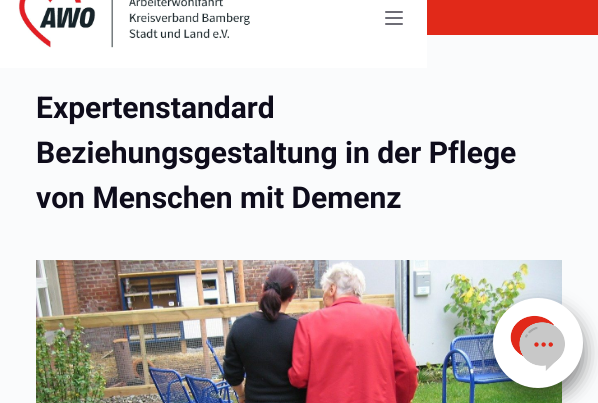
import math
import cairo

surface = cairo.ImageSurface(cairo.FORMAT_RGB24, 598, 403)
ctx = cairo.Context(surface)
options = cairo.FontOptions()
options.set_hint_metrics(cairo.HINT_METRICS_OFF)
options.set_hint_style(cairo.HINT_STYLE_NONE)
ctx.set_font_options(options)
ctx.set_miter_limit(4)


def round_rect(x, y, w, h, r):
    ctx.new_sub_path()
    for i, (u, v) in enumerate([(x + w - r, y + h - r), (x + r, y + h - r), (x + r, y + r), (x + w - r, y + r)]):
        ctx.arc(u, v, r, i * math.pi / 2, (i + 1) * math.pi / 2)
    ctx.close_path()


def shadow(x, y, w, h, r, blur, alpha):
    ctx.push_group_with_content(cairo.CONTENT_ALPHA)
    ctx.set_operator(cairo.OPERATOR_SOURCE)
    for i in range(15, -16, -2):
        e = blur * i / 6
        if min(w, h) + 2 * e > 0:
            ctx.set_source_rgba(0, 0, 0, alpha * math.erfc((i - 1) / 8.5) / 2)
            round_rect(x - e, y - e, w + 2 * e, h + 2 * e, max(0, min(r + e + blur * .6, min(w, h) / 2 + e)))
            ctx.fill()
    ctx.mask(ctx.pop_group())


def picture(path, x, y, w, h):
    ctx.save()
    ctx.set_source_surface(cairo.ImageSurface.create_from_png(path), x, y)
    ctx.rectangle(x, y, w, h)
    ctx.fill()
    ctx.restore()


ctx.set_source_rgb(0.98, 0.984, 0.988)
ctx.paint()
ctx.set_source_rgb(0.882, 0.161, 0.098)
ctx.rectangle(427, 0, 171, 35)
ctx.fill()
ctx.set_source_rgb(1, 1, 1)
ctx.rectangle(0, 0, 427, 68)
ctx.fill()
picture("img1.png", 18, 0, 232, 48)
ctx.set_source_rgb(0.431, 0.427, 0.463)
round_rect(385, 11, 18, 2, 1)
ctx.fill()
round_rect(385, 17, 18, 2, 1)
ctx.fill()
round_rect(385, 23, 18, 2, 1)
ctx.fill()
ctx.select_font_face("Roboto", cairo.FONT_SLANT_NORMAL, cairo.FONT_WEIGHT_BOLD)
ctx.set_font_size(30)
ctx.set_source_rgb(0.055, 0.047, 0.106)
ctx.move_to(36, 118)
ctx.show_text("Expertenstandard")
ctx.move_to(36, 163)
ctx.show_text("Beziehungsgestaltung in der Pflege")
ctx.move_to(36, 208)
ctx.show_text("von Menschen mit Demenz")
picture("img2.png", 36, 260, 526, 143)
ctx.set_source_rgb(0, 0, 0)
shadow(493, 308, 90, 90, 45, 10, 0.5)
ctx.set_source_rgb(1, 1, 1)
ctx.arc(538, 343, 45, 0, 2 * math.pi)
ctx.fill()
picture("img3.png", 510, 315, 55, 56)
surface.write_to_png("page.png")
